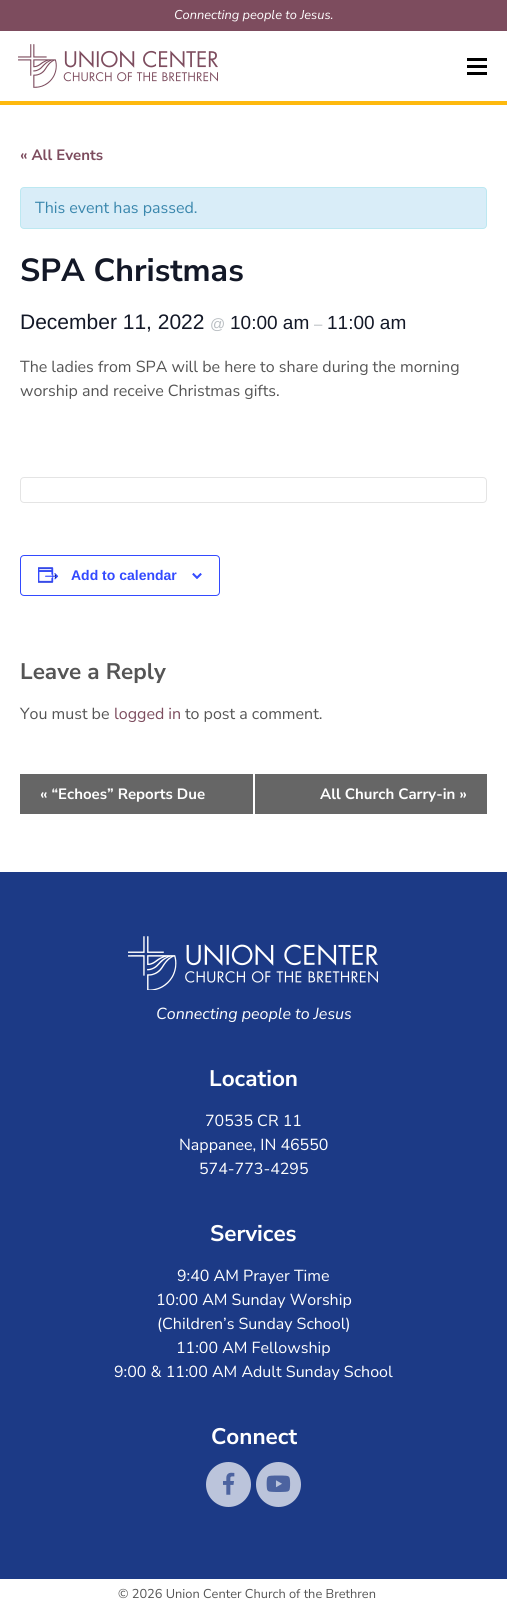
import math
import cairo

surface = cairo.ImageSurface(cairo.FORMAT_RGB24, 507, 1610)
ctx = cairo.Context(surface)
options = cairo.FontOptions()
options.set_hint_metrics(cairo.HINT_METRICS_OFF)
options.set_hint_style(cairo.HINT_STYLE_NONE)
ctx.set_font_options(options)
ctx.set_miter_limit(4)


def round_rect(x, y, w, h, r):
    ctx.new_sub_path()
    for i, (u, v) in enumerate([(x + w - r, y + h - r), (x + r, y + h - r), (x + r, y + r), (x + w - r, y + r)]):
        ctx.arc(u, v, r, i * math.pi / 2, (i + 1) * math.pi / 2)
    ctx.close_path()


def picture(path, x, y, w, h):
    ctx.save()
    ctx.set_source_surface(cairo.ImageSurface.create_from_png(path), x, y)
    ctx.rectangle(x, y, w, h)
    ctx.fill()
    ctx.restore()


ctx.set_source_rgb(1, 1, 1)
ctx.paint()
ctx.set_source_rgb(0.49, 0.298, 0.369)
ctx.rectangle(0, 0, 507, 31)
ctx.fill()
ctx.select_font_face("Nunito Sans", cairo.FONT_SLANT_ITALIC)
ctx.set_font_size(12.8)
ctx.set_source_rgb(1, 1, 1)
ctx.move_to(174, 19)
ctx.show_text("Connecting people to Jesus.")
picture("img1.png", 18, 44, 200, 44)
ctx.set_source_rgb(0, 0, 0)
ctx.rectangle(467, 58, 20, 3)
ctx.fill()
ctx.rectangle(467, 65, 20, 3)
ctx.fill()
ctx.rectangle(467, 72, 20, 3)
ctx.fill()
ctx.set_source_rgb(0.996, 0.725, 0.055)
ctx.rectangle(0, 101, 507, 4)
ctx.fill()
ctx.select_font_face("Nunito Sans", cairo.FONT_SLANT_NORMAL, cairo.FONT_WEIGHT_BOLD)
ctx.set_font_size(15)
ctx.set_source_rgb(0.49, 0.298, 0.369)
ctx.move_to(20, 160)
ctx.show_text("« All Events")
ctx.set_source_rgb(0.851, 0.929, 0.969)
round_rect(20.5, 187.5, 466, 41, 3.5)
ctx.fill_preserve()
ctx.set_source_rgb(0.737, 0.91, 0.945)
ctx.set_line_width(1)
ctx.stroke()
ctx.select_font_face("Nunito Sans")
ctx.set_font_size(16)
ctx.set_source_rgb(0.227, 0.529, 0.678)
ctx.move_to(35, 213)
ctx.show_text("This event has passed.")
ctx.select_font_face("Nunito Sans", cairo.FONT_SLANT_NORMAL, cairo.FONT_WEIGHT_BOLD)
ctx.set_font_size(32)
ctx.set_source_rgb(0.078, 0.094, 0.153)
ctx.move_to(20, 281)
ctx.show_text("SPA Christmas")
ctx.select_font_face("Liberation Sans")
ctx.set_font_size(21)
ctx.move_to(20, 329)
ctx.show_text("December 11, 2022")
ctx.set_font_size(15)
ctx.set_source_rgb(0.725, 0.745, 0.761)
ctx.move_to(210, 329)
ctx.show_text("@")
ctx.set_font_size(19)
ctx.set_source_rgb(0.078, 0.094, 0.153)
ctx.move_to(230, 329)
ctx.show_text("10:00 am")
ctx.set_font_size(15)
ctx.set_source_rgb(0.725, 0.745, 0.761)
ctx.move_to(314, 329)
ctx.show_text("–")
ctx.set_font_size(19)
ctx.set_source_rgb(0.078, 0.094, 0.153)
ctx.move_to(327, 329)
ctx.show_text("11:00 am")
ctx.select_font_face("Nunito Sans")
ctx.set_font_size(16)
ctx.set_source_rgb(0.333, 0.333, 0.333)
ctx.move_to(20, 372)
ctx.show_text("The ladies from SPA will be here to share during the morning")
ctx.move_to(20, 396)
ctx.show_text("worship and receive Christmas gifts.")
round_rect(20.5, 477.5, 466, 25, 3.5)
ctx.set_source_rgb(0.894, 0.894, 0.894)
ctx.stroke()
round_rect(20.5, 555.5, 199, 40, 3.5)
ctx.set_source_rgb(0.2, 0.29, 1)
ctx.stroke()
picture("img2.png", 38, 567, 21, 16)
ctx.select_font_face("Liberation Sans", cairo.FONT_SLANT_NORMAL, cairo.FONT_WEIGHT_BOLD)
ctx.set_font_size(14)
ctx.move_to(71, 580)
ctx.show_text("Add to calendar")
picture("img3.png", 192, 573, 10, 6)
ctx.select_font_face("Nunito Sans", cairo.FONT_SLANT_NORMAL, cairo.FONT_WEIGHT_BOLD)
ctx.set_font_size(22.5)
ctx.set_source_rgb(0.333, 0.333, 0.333)
ctx.move_to(20, 679)
ctx.show_text("Leave a Reply")
ctx.select_font_face("Nunito Sans")
ctx.set_font_size(16)
ctx.move_to(20, 719)
ctx.show_text("You must be")
ctx.set_source_rgb(0.49, 0.298, 0.369)
ctx.move_to(114, 719)
ctx.show_text("logged in")
ctx.set_source_rgb(0.333, 0.333, 0.333)
ctx.move_to(185, 719)
ctx.show_text("to post a comment.")
ctx.set_source_rgb(0.4, 0.4, 0.4)
ctx.rectangle(20, 774, 233, 40)
ctx.fill()
ctx.select_font_face("Nunito Sans", cairo.FONT_SLANT_NORMAL, cairo.FONT_WEIGHT_BOLD)
ctx.set_font_size(15)
ctx.set_source_rgb(1, 1, 1)
ctx.move_to(40, 799)
ctx.show_text("« “Echoes” Reports Due")
ctx.set_source_rgb(0.4, 0.4, 0.4)
ctx.rectangle(255, 774, 232, 40)
ctx.fill()
ctx.set_source_rgb(1, 1, 1)
ctx.move_to(320, 799)
ctx.show_text("All Church Carry-in »")
ctx.set_source_rgb(0.11, 0.227, 0.525)
ctx.rectangle(0, 872, 507, 707)
ctx.fill()
picture("img4.png", 128, 936, 250, 54)
ctx.select_font_face("Nunito Sans", cairo.FONT_SLANT_ITALIC)
ctx.set_font_size(16)
ctx.set_source_rgb(1, 1, 1)
ctx.move_to(156, 1019)
ctx.show_text("Connecting people to Jesus")
ctx.select_font_face("Nunito Sans", cairo.FONT_SLANT_NORMAL, cairo.FONT_WEIGHT_BOLD)
ctx.set_font_size(22.5)
ctx.move_to(209, 1086)
ctx.show_text("Location")
ctx.select_font_face("Nunito Sans")
ctx.set_font_size(16)
ctx.move_to(205, 1126)
ctx.show_text("70535 CR 11")
ctx.move_to(179, 1150)
ctx.show_text("Nappanee, IN 46550")
ctx.move_to(199, 1174)
ctx.show_text("574-773-4295")
ctx.select_font_face("Nunito Sans", cairo.FONT_SLANT_NORMAL, cairo.FONT_WEIGHT_BOLD)
ctx.set_font_size(22.5)
ctx.move_to(210, 1241)
ctx.show_text("Services")
ctx.select_font_face("Nunito Sans")
ctx.set_font_size(16)
ctx.move_to(177, 1281)
ctx.show_text("9:40 AM Prayer Time")
ctx.move_to(156, 1305)
ctx.show_text("10:00 AM Sunday Worship")
ctx.move_to(157, 1329)
ctx.show_text("(Children’s Sunday School)")
ctx.move_to(176, 1353)
ctx.show_text("11:00 AM Fellowship")
ctx.move_to(114, 1377)
ctx.show_text("9:00 & 11:00 AM Adult Sunday School")
ctx.select_font_face("Nunito Sans", cairo.FONT_SLANT_NORMAL, cairo.FONT_WEIGHT_BOLD)
ctx.set_font_size(22.5)
ctx.move_to(211, 1444)
ctx.show_text("Connect")
ctx.set_source_rgb(0.733, 0.769, 0.859)
ctx.new_path()
ctx.arc(228.5, 1484.5, 22.5, 0, 2 * math.pi)
ctx.fill()
picture("img5.png", 223, 1472, 12, 23)
ctx.arc(278.5, 1484.5, 22.5, 0, 2 * math.pi)
ctx.fill()
picture("img6.png", 266, 1475, 25, 17)
ctx.select_font_face("Nunito Sans")
ctx.set_font_size(12.8)
ctx.set_source_rgb(0.333, 0.333, 0.333)
ctx.move_to(118, 1598)
ctx.show_text("© 2026 Union Center Church of the Brethren")
surface.write_to_png("page.png")
